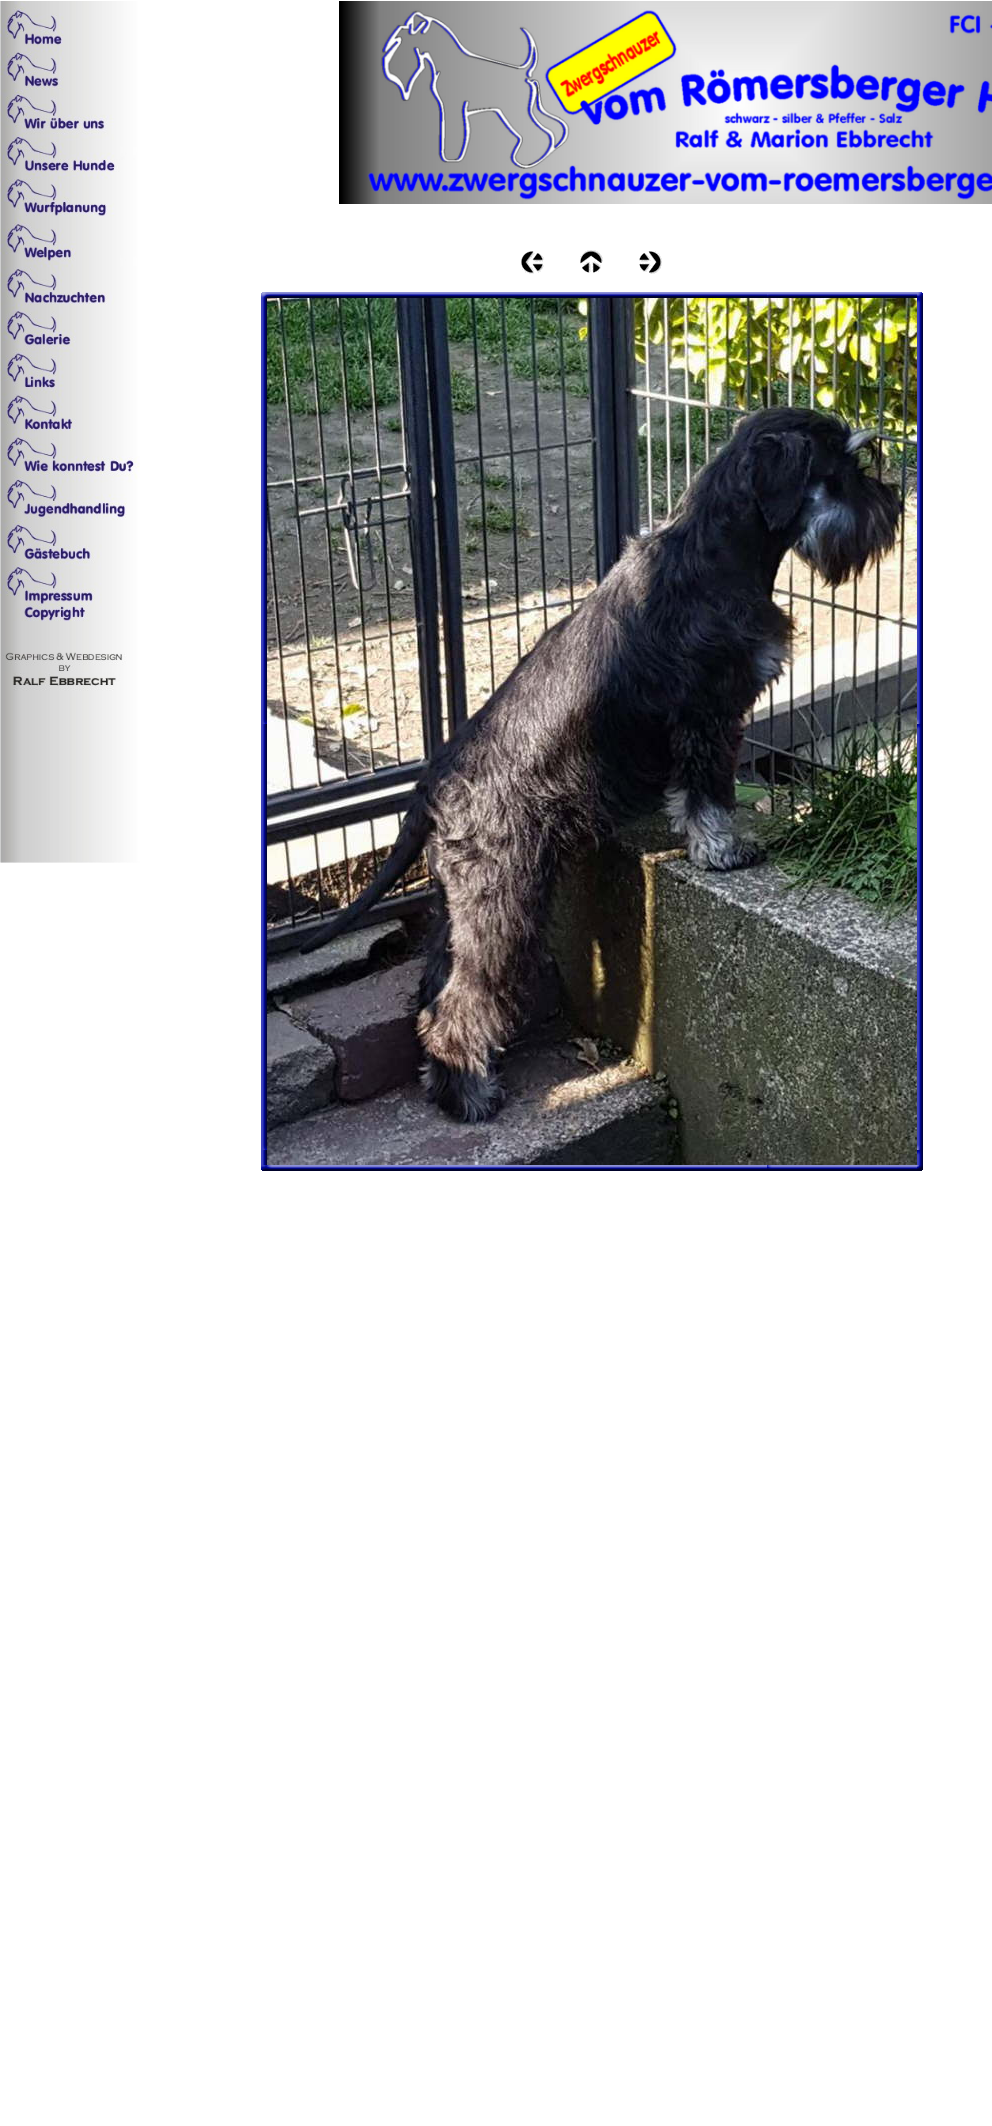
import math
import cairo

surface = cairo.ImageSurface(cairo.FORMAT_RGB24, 992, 2126)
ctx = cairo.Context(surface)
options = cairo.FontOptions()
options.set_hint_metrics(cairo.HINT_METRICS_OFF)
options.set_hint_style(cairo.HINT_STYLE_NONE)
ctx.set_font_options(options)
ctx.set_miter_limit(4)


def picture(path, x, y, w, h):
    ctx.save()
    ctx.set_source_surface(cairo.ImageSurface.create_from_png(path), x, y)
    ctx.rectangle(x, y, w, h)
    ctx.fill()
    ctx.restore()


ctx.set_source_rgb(1, 1, 1)
ctx.paint()
picture("img1.png", 0, 1, 140, 862)
picture("img2.png", 339, 1, 653, 203)
picture("img3.png", 521, 251, 23, 23)
picture("img4.png", 580, 250, 23, 23)
picture("img5.png", 639, 251, 23, 23)
picture("img6.png", 261, 292, 6, 6)
picture("img7.png", 267, 292, 650, 6)
picture("img8.png", 917, 292, 6, 6)
picture("img9.png", 261, 298, 6, 867)
picture("img10.png", 267, 298, 650, 867)
picture("img11.png", 917, 298, 6, 867)
picture("img12.png", 261, 1165, 6, 6)
picture("img13.png", 267, 1165, 650, 6)
picture("img14.png", 917, 1165, 6, 6)
surface.write_to_png("page.png")
